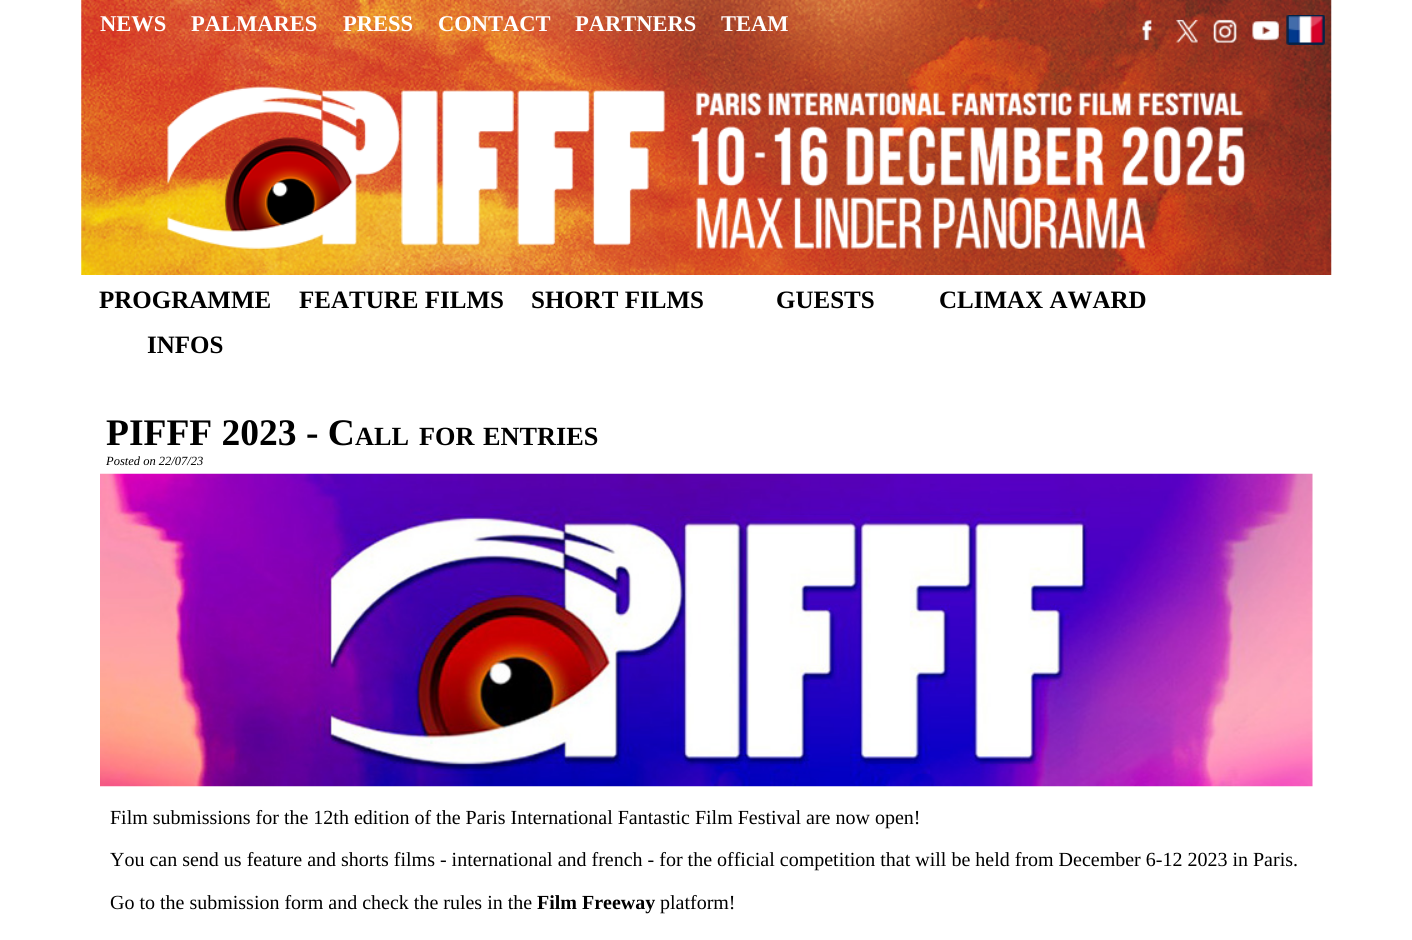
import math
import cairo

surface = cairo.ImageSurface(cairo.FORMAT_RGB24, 1412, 940)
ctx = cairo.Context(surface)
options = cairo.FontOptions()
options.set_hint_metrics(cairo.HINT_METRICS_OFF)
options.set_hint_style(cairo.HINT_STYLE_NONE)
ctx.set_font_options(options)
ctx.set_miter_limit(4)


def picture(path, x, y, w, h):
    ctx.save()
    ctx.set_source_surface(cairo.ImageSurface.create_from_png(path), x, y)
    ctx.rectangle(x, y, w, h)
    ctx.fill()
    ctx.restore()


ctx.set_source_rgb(1, 1, 1)
ctx.paint()
picture("img1.png", 81, 0, 1251, 275)
ctx.select_font_face("Liberation Serif", cairo.FONT_SLANT_NORMAL, cairo.FONT_WEIGHT_BOLD)
ctx.set_font_size(22.5)
ctx.set_source_rgb(1, 1, 1)
ctx.move_to(100, 31)
ctx.show_text("NEWS")
ctx.move_to(191, 31)
ctx.show_text("PALMARES")
ctx.move_to(343, 31)
ctx.show_text("PRESS")
ctx.move_to(438, 31)
ctx.show_text("CONTACT")
ctx.move_to(575, 31)
ctx.show_text("PARTNERS")
ctx.move_to(721, 31)
ctx.show_text("TEAM")
picture("img2.png", 1142, 19, 10, 22)
picture("img3.png", 1176, 19, 22, 24)
picture("img4.png", 1213, 19, 24, 24)
picture("img5.png", 1252, 21, 27, 20)
picture("img6.png", 1286, 15, 39, 30)
picture("img7.png", 167, 86, 1079, 163)
ctx.set_font_size(25)
ctx.set_source_rgb(0, 0, 0)
ctx.move_to(99, 308)
ctx.show_text("PROGRAMME")
ctx.move_to(299, 308)
ctx.show_text("FEATURE FILMS")
ctx.move_to(531, 308)
ctx.show_text("SHORT FILMS")
ctx.move_to(776, 308)
ctx.show_text("GUESTS")
ctx.move_to(939, 308)
ctx.show_text("CLIMAX AWARD")
ctx.move_to(147, 353)
ctx.show_text("INFOS")
ctx.set_font_size(37.5)
ctx.move_to(106, 445)
ctx.show_text("PIFFF 2023 - C")
ctx.set_font_size(26.25)
ctx.move_to(355, 445)
ctx.show_text("ALL")
ctx.move_to(419, 445)
ctx.show_text("FOR")
ctx.move_to(483, 445)
ctx.show_text("ENTRIES")
ctx.select_font_face("Liberation Serif", cairo.FONT_SLANT_ITALIC)
ctx.set_font_size(12.5)
ctx.move_to(106, 465)
ctx.show_text("Posted on 22/07/23")
picture("img8.png", 100, 473, 1213, 314)
ctx.select_font_face("Liberation Serif")
ctx.set_font_size(20)
ctx.move_to(110, 824)
ctx.show_text("Film submissions for the 12th edition of the Paris International Fantastic Film Festival are now open!")
ctx.move_to(110, 866)
ctx.show_text("You can send us feature and shorts films - international and french - for the official competition that will be held from December 6-12 2023 in Paris.")
ctx.move_to(110, 909)
ctx.show_text("Go to the submission form and check the rules in the")
ctx.select_font_face("Liberation Serif", cairo.FONT_SLANT_NORMAL, cairo.FONT_WEIGHT_BOLD)
ctx.move_to(537, 909)
ctx.show_text("Film Freeway")
ctx.select_font_face("Liberation Serif")
ctx.move_to(660, 909)
ctx.show_text("platform!")
surface.write_to_png("page.png")
